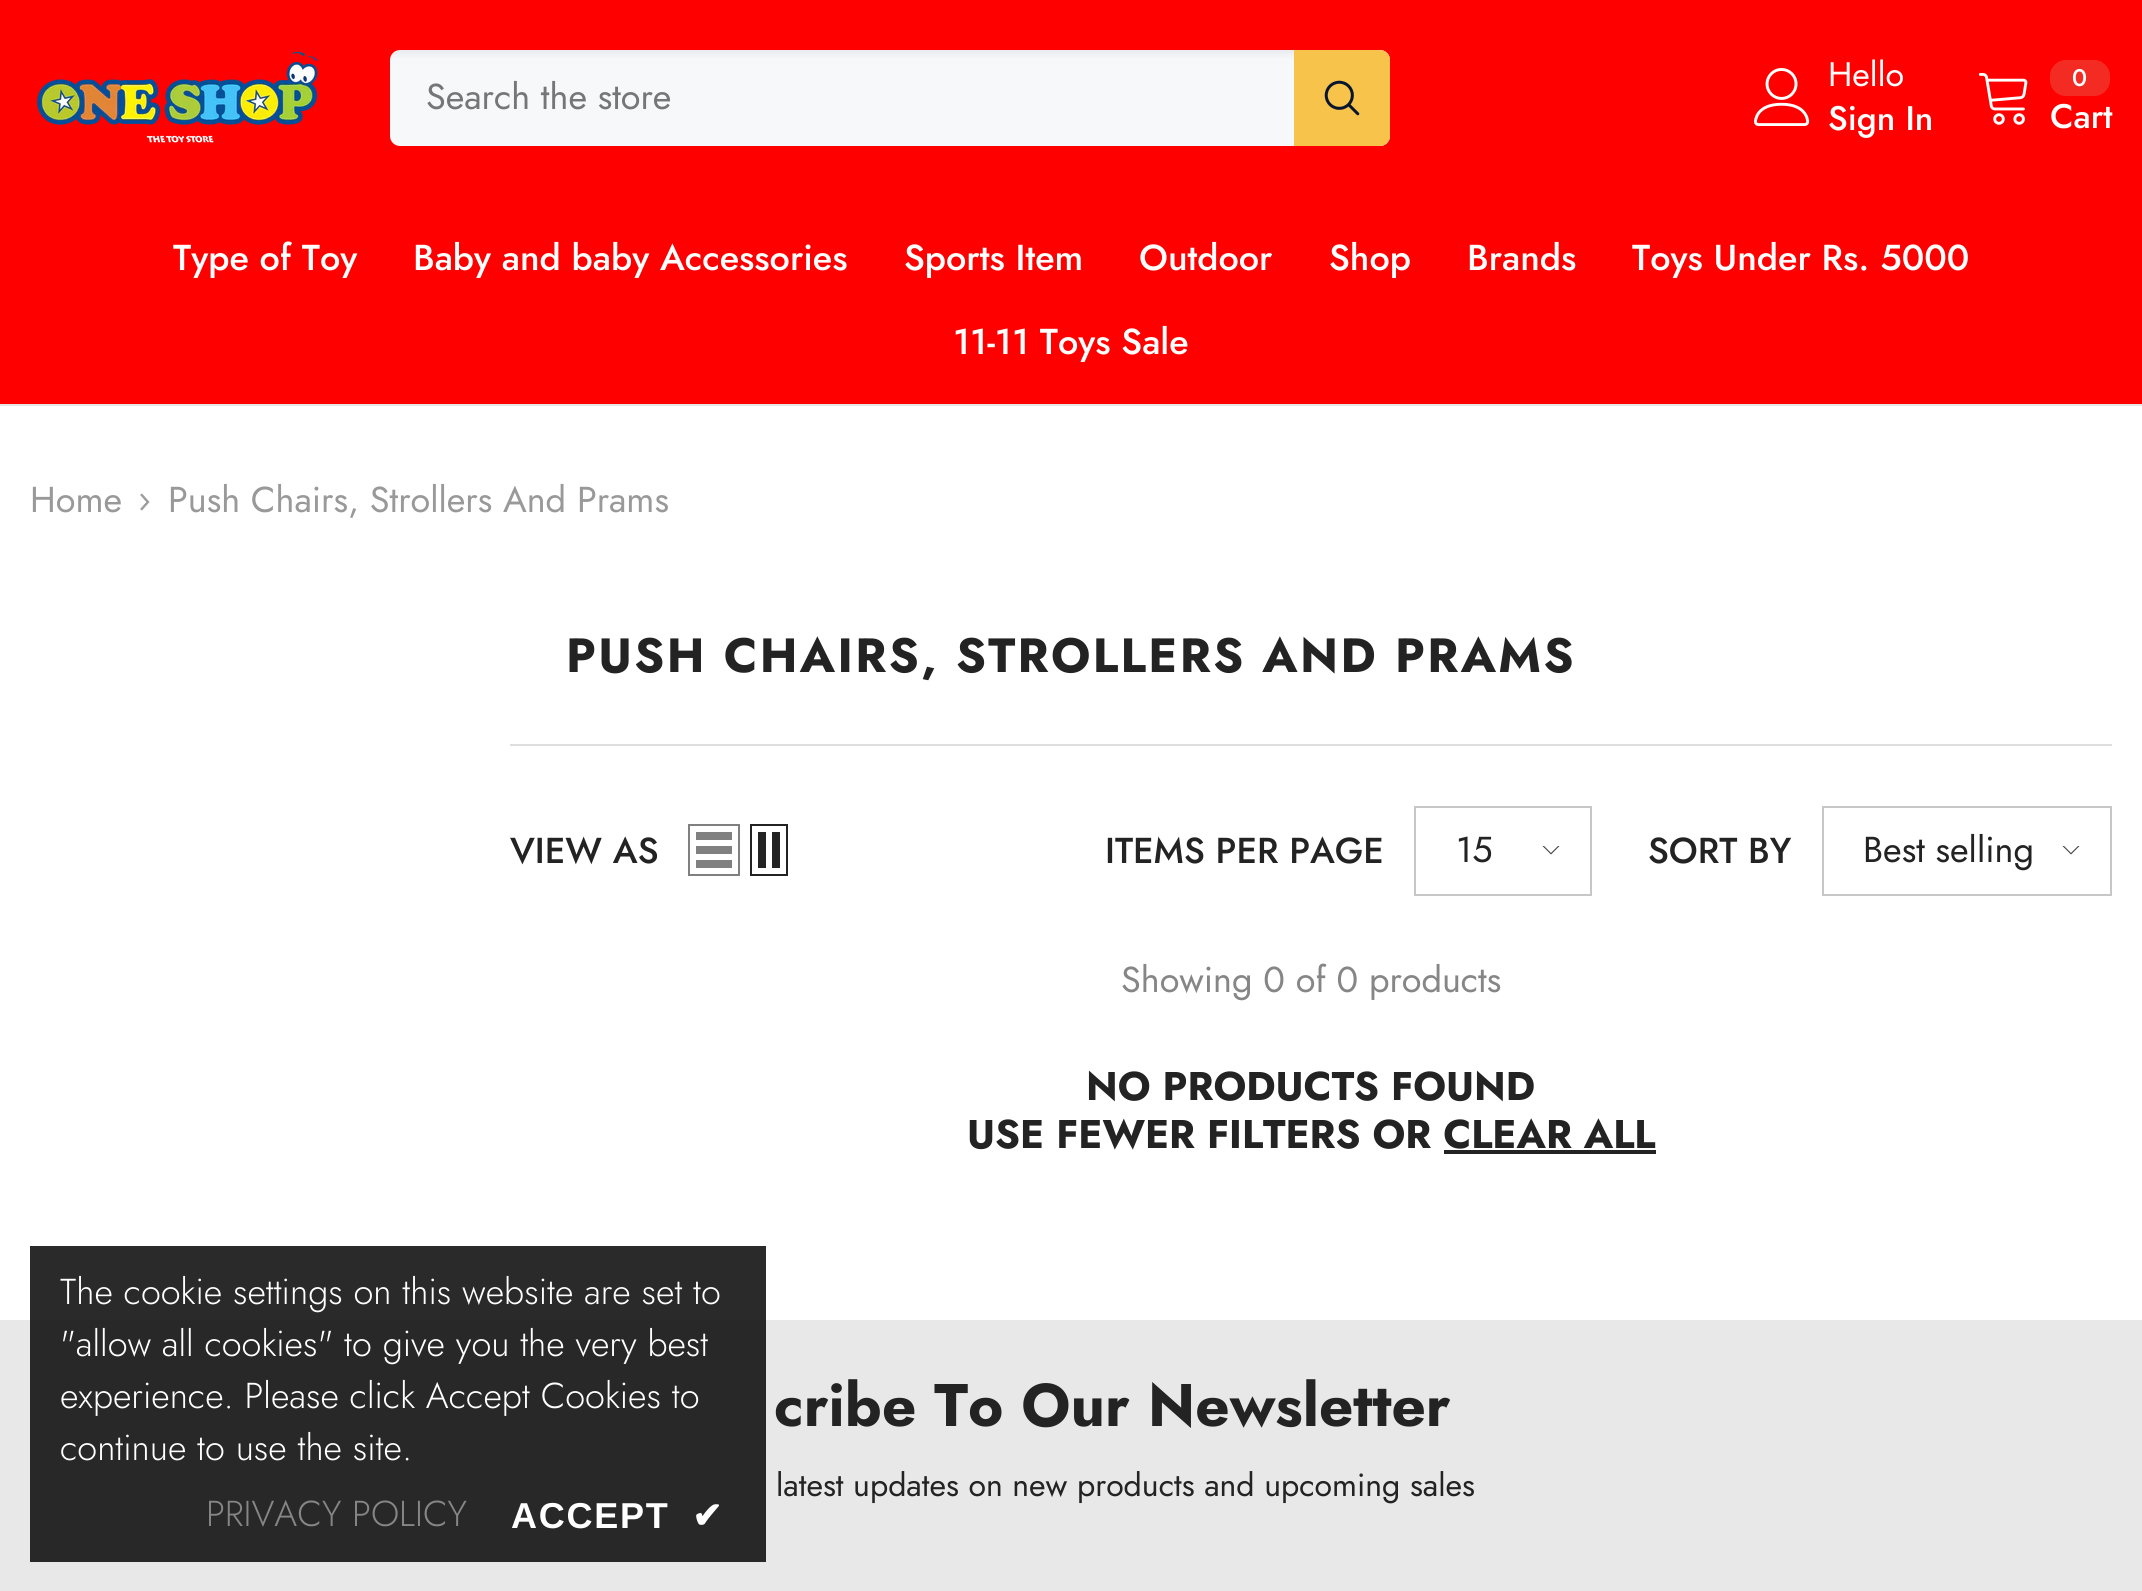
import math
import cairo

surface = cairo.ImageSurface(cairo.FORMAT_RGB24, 2142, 1591)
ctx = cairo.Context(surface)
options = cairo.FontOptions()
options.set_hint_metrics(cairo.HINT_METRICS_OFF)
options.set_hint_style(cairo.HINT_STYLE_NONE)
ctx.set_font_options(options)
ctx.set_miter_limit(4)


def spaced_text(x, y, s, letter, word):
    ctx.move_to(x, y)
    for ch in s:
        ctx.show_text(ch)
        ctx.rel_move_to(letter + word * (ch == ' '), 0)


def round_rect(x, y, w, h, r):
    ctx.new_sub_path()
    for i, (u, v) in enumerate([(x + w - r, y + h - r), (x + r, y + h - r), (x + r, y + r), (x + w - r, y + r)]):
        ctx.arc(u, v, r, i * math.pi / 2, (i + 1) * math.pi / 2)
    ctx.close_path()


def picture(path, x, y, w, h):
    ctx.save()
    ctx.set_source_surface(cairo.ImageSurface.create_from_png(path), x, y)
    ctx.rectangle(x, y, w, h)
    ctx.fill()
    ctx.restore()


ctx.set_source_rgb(1, 1, 1)
ctx.paint()
ctx.set_source_rgb(1, 0, 0)
ctx.rectangle(0, 0, 2142, 404)
ctx.fill()
picture("img1.png", 37, 51, 281, 92)
gradient = cairo.LinearGradient(890, 50, 890, 146)
gradient.add_color_stop_rgba(0, 0.914, 0.922, 0.933, 1)
gradient.add_color_stop_rgba(0.1, 0.969, 0.973, 0.98, 1)
gradient.add_color_stop_rgba(1, 0.969, 0.973, 0.98, 1)
ctx.set_source(gradient)
round_rect(390, 50, 1000, 96, 10)
ctx.fill()
ctx.select_font_face("Jost")
ctx.set_font_size(36)
ctx.set_source_rgb(0.463, 0.463, 0.463)
ctx.move_to(426, 109)
ctx.show_text("Search the store")
ctx.set_source_rgb(0.969, 0.765, 0.29)
ctx.new_path()
ctx.move_to(1294, 50)
ctx.line_to(1380, 50)
ctx.curve_to(1385.5, 50, 1390, 54.5, 1390, 60)
ctx.line_to(1390, 136)
ctx.curve_to(1390, 141.5, 1385.5, 146, 1380, 146)
ctx.line_to(1294, 146)
ctx.close_path()
ctx.fill()
picture("img2.png", 1324, 80, 36, 36)
picture("img3.png", 1754, 68, 56, 58)
ctx.set_font_size(34)
ctx.set_source_rgb(1, 1, 1)
ctx.move_to(1828, 86)
ctx.show_text("Hello")
ctx.select_font_face("Jost Medium")
ctx.move_to(1828, 130)
ctx.show_text("Sign In")
picture("img4.png", 1978, 73, 50, 52)
ctx.set_source_rgb(0.957, 0.169, 0.137)
round_rect(2050, 60, 60, 36, 16)
ctx.fill()
ctx.set_font_size(24)
ctx.set_source_rgb(1, 1, 1)
ctx.move_to(2072, 86)
ctx.show_text("0")
ctx.set_font_size(34)
ctx.move_to(2050, 128)
ctx.show_text("Cart")
ctx.set_source_rgb(0.902, 0.902, 0.902)
ctx.rectangle(0, 404, 2142, 2)
ctx.fill()
ctx.set_font_size(36)
ctx.set_source_rgb(1, 1, 1)
ctx.move_to(173, 270)
ctx.show_text("Type of Toy")
ctx.move_to(413, 270)
ctx.show_text("Baby and baby Accessories")
ctx.move_to(904, 270)
ctx.show_text("Sports Item")
ctx.move_to(1139, 270)
ctx.show_text("Outdoor")
ctx.move_to(1329, 270)
ctx.show_text("Shop")
ctx.move_to(1467, 270)
ctx.show_text("Brands")
ctx.move_to(1632, 270)
ctx.show_text("Toys Under Rs. 5000")
ctx.move_to(953, 354)
ctx.show_text("11-11 Toys Sale")
ctx.select_font_face("Jost")
ctx.set_source_rgb(0.6, 0.6, 0.6)
ctx.move_to(30, 512)
ctx.show_text("Home")
picture("img5.png", 140, 493, 10, 18)
ctx.move_to(168, 512)
ctx.show_text("Push Chairs, Strollers And Prams")
ctx.select_font_face("Jost", cairo.FONT_SLANT_NORMAL, cairo.FONT_WEIGHT_BOLD)
ctx.set_font_size(48)
ctx.set_source_rgb(0.137, 0.137, 0.137)
spaced_text(566, 672, "PUSH CHAIRS, STROLLERS AND PRAMS", 2.4, 0)
ctx.set_source_rgb(0.871, 0.871, 0.871)
ctx.rectangle(510, 744, 1602, 2)
ctx.fill()
ctx.select_font_face("Jost Medium")
ctx.set_font_size(36)
ctx.set_source_rgb(0.137, 0.137, 0.137)
ctx.move_to(510, 863)
ctx.show_text("VIEW AS")
ctx.rectangle(689, 825, 50, 50)
ctx.set_source_rgb(0.502, 0.502, 0.502)
ctx.stroke()
ctx.rectangle(696, 860, 36, 8)
ctx.fill()
ctx.rectangle(696, 846, 36, 8)
ctx.fill()
ctx.rectangle(696, 832, 36, 8)
ctx.fill()
ctx.rectangle(751, 825, 36, 50)
ctx.set_source_rgb(0.137, 0.137, 0.137)
ctx.stroke()
ctx.rectangle(772, 832, 8, 36)
ctx.fill()
ctx.rectangle(758, 832, 8, 36)
ctx.fill()
ctx.move_to(1105, 863)
ctx.show_text("ITEMS PER PAGE")
ctx.rectangle(1415, 807, 176, 88)
ctx.set_source_rgb(0.78, 0.78, 0.78)
ctx.stroke()
ctx.select_font_face("Jost")
ctx.set_source_rgb(0.137, 0.137, 0.137)
ctx.move_to(1456, 862)
ctx.show_text("15")
ctx.save()
ctx.rectangle(1542, 846, 18, 10)
ctx.clip()
ctx.set_source_rgb(0.235, 0.235, 0.235)
ctx.new_path()
ctx.move_to(1551, 853)
ctx.line_to(1543.5, 845.5)
ctx.line_to(1542, 845.5)
ctx.line_to(1551, 854.5)
ctx.line_to(1560, 845.5)
ctx.line_to(1558.5, 845.5)
ctx.close_path()
ctx.fill()
ctx.restore()
ctx.select_font_face("Jost Medium")
ctx.move_to(1648, 863)
ctx.show_text("SORT BY")
ctx.rectangle(1823, 807, 288, 88)
ctx.set_source_rgb(0.78, 0.78, 0.78)
ctx.stroke()
ctx.select_font_face("Jost")
ctx.set_source_rgb(0.137, 0.137, 0.137)
ctx.move_to(1863, 862)
ctx.show_text("Best selling")
ctx.save()
ctx.rectangle(2062, 846, 18, 10)
ctx.clip()
ctx.set_source_rgb(0.235, 0.235, 0.235)
ctx.new_path()
ctx.move_to(2071, 853)
ctx.line_to(2063.5, 845.5)
ctx.line_to(2062, 845.5)
ctx.line_to(2071, 854.5)
ctx.line_to(2080, 845.5)
ctx.line_to(2078.5, 845.5)
ctx.close_path()
ctx.fill()
ctx.restore()
ctx.set_source_rgb(0.525, 0.525, 0.525)
ctx.move_to(1121, 992)
ctx.show_text("Showing 0 of 0 products")
ctx.select_font_face("Jost", cairo.FONT_SLANT_NORMAL, cairo.FONT_WEIGHT_BOLD)
ctx.set_font_size(40)
ctx.set_source_rgb(0.137, 0.137, 0.137)
ctx.move_to(1086, 1100)
ctx.show_text("NO PRODUCTS FOUND")
ctx.move_to(967, 1148)
ctx.show_text("USE FEWER FILTERS OR CLEAR ALL")
ctx.rectangle(1444, 1150, 212, 4)
ctx.fill()
ctx.set_source_rgb(0.91, 0.91, 0.91)
ctx.rectangle(0, 1320, 2142, 271)
ctx.fill()
ctx.set_font_size(60)
ctx.set_source_rgb(0.137, 0.137, 0.137)
ctx.move_to(774, 1426)
ctx.show_text("cribe To Our Newsletter")
ctx.select_font_face("Jost")
ctx.set_font_size(32)
ctx.move_to(776, 1496)
ctx.show_text("latest updates on new products and upcoming sales")
ctx.set_source_rgba(0.078, 0.078, 0.078, 0.9)
ctx.rectangle(30, 1246, 736, 316)
ctx.fill()
ctx.select_font_face("Jost Light")
ctx.set_font_size(36)
ctx.set_source_rgb(1, 1, 1)
ctx.move_to(60, 1304)
ctx.show_text("The cookie settings on this website are set to")
ctx.move_to(60, 1356)
ctx.show_text("\"allow all cookies\" to give you the very best")
ctx.move_to(60, 1408)
ctx.show_text("experience. Please click Accept Cookies to")
ctx.move_to(60, 1460)
ctx.show_text("continue to use the site.")
ctx.set_source_rgb(0.525, 0.525, 0.525)
ctx.move_to(206, 1526)
ctx.show_text("PRIVACY POLICY")
ctx.select_font_face("Liberation Sans", cairo.FONT_SLANT_NORMAL, cairo.FONT_WEIGHT_BOLD)
ctx.set_source_rgb(1, 1, 1)
spaced_text(511, 1528, "ACCEPT", 1.75, 0)
ctx.select_font_face("DejaVu Sans", cairo.FONT_SLANT_NORMAL, cairo.FONT_WEIGHT_BOLD)
spaced_text(692, 1528, "✔", 1.75, 0)
surface.write_to_png("page.png")
